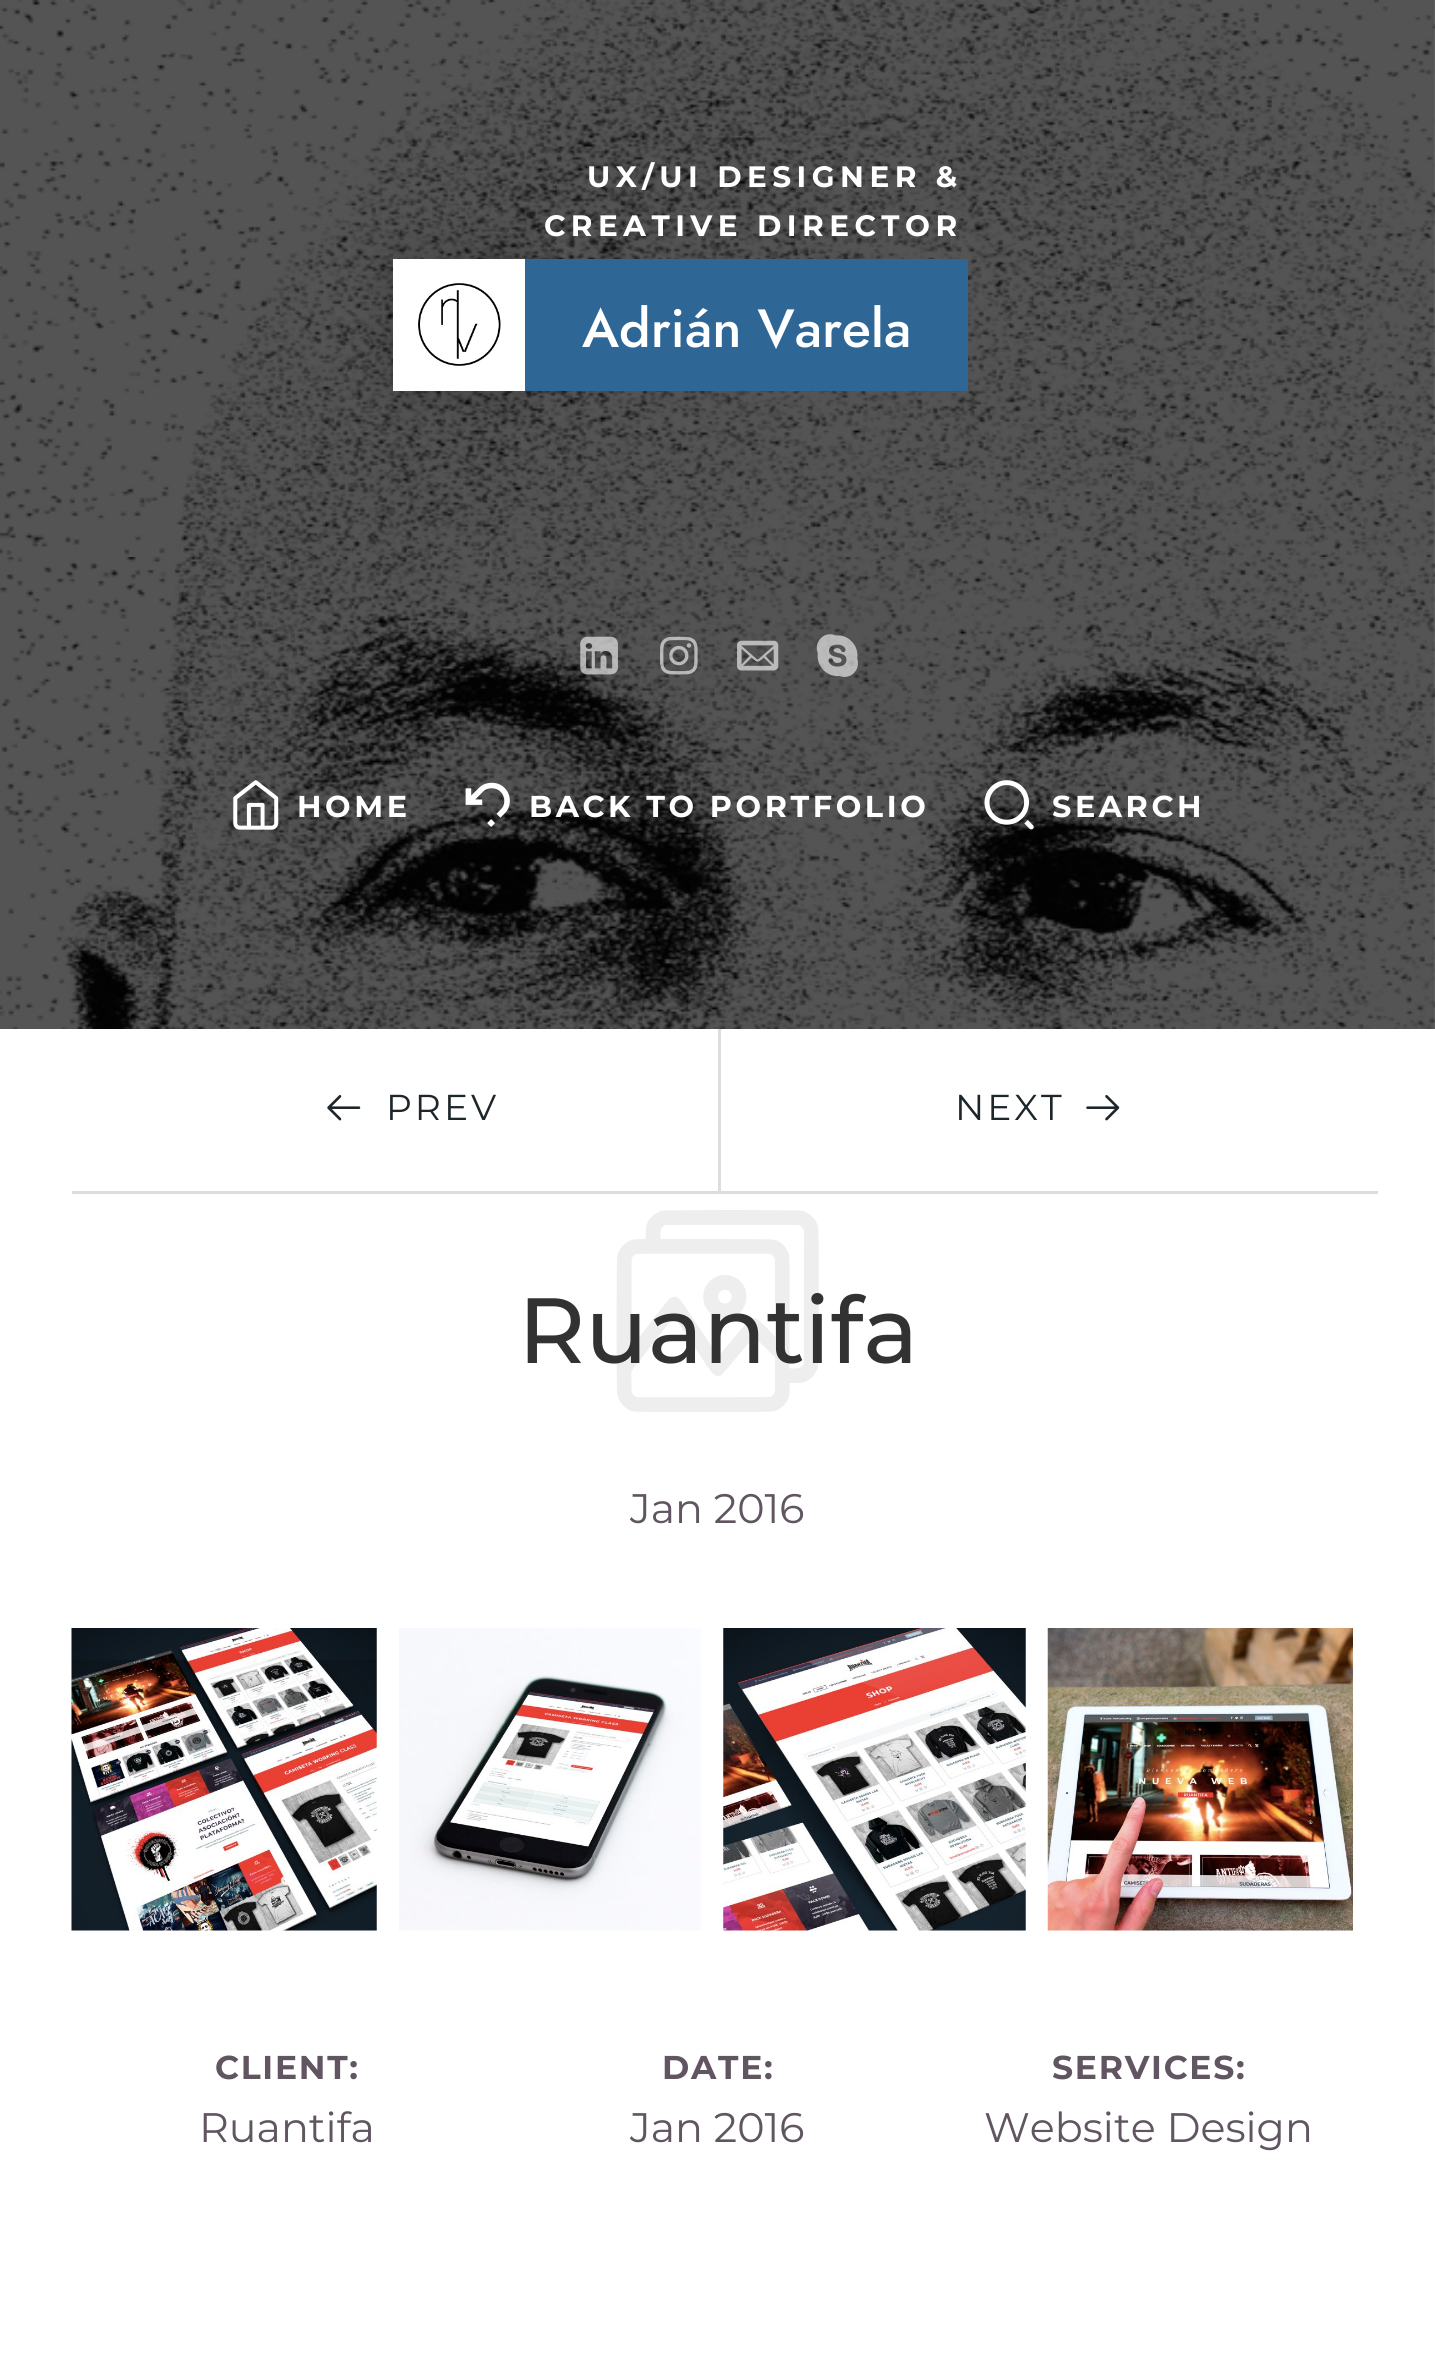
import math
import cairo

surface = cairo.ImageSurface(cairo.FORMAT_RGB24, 1435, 2357)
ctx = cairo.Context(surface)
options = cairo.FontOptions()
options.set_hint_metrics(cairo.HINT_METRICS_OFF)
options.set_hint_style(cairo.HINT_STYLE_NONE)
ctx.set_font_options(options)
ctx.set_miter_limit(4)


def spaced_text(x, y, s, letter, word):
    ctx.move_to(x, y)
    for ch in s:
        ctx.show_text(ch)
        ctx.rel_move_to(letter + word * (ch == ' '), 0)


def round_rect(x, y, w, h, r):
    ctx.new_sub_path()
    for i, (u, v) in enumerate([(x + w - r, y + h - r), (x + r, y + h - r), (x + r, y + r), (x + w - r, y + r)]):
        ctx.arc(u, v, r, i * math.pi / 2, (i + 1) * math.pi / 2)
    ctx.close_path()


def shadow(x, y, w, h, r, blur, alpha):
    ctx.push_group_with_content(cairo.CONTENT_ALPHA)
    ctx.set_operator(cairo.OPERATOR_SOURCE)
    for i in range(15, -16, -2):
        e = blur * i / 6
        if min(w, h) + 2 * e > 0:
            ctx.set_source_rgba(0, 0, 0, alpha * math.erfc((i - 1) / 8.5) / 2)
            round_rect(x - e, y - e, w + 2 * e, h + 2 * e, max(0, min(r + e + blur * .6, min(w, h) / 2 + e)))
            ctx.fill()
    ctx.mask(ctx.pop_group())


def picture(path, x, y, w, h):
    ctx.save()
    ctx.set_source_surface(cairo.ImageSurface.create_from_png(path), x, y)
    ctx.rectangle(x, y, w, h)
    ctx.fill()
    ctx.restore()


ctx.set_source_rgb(1, 1, 1)
ctx.paint()
picture("img1.png", 0, 0, 1435, 1029)
ctx.set_source_rgb(0, 0, 0)
shadow(393, 259, 132, 132, 0, 22, 0.2)
ctx.set_source_rgb(1, 1, 1)
ctx.rectangle(393, 259, 132, 132)
ctx.fill()
ctx.select_font_face("Montserrat", cairo.FONT_SLANT_NORMAL, cairo.FONT_WEIGHT_BOLD)
ctx.set_font_size(29.5)
spaced_text(587, 187, "UX/UI DESIGNER &", 5.5, 0)
spaced_text(544, 236, "CREATIVE DIRECTOR", 5.5, 0)
picture("img2.png", 418, 283, 83, 83)
ctx.set_source_rgb(0.18, 0.4, 0.588)
ctx.rectangle(525, 259, 443, 132)
ctx.fill()
ctx.select_font_face("Jost Medium")
ctx.set_font_size(53.75)
ctx.set_source_rgb(1, 1, 1)
ctx.move_to(582, 347)
ctx.show_text("Adrián Varela")
picture("img3.png", 580, 636, 38, 39)
picture("img4.png", 660, 636, 38, 39)
picture("img5.png", 737, 640, 42, 31)
picture("img6.png", 816, 634, 42, 43)
picture("img7.png", 233, 780, 46, 50)
ctx.select_font_face("Montserrat", cairo.FONT_SLANT_NORMAL, cairo.FONT_WEIGHT_BOLD)
ctx.set_font_size(30.25)
spaced_text(297, 817, "HOME", 3.6, 0)
picture("img8.png", 465, 782, 45, 45)
spaced_text(529, 817, "BACK TO PORTFOLIO", 3.6, 0)
picture("img9.png", 984, 780, 50, 50)
spaced_text(1052, 817, "SEARCH", 3.6, 0)
ctx.set_source_rgb(0.867, 0.867, 0.867)
ctx.rectangle(72, 1191, 1306, 3)
ctx.fill()
picture("img10.png", 327, 1095, 34, 26)
ctx.select_font_face("Montserrat")
ctx.set_font_size(36)
ctx.set_source_rgb(0.11, 0.149, 0.169)
spaced_text(386, 1120, "PREV", 3, 0)
ctx.set_source_rgb(0.867, 0.867, 0.867)
ctx.rectangle(718, 1029, 3, 165)
ctx.fill()
ctx.set_source_rgb(0.11, 0.149, 0.169)
spaced_text(955, 1120, "NEXT", 3, 0)
picture("img11.png", 1086, 1095, 34, 26)
picture("img12.png", 616, 1210, 203, 202)
ctx.select_font_face("Montserrat Medium")
ctx.set_font_size(92.5)
ctx.set_source_rgb(0.196, 0.196, 0.196)
ctx.move_to(518, 1363)
ctx.show_text("Ruantifa")
ctx.select_font_face("Montserrat")
ctx.set_font_size(41.25)
ctx.set_source_rgb(0.376, 0.333, 0.38)
ctx.move_to(630, 1523)
ctx.show_text("Jan 2016")
picture("img13.png", 71, 1628, 306, 303)
picture("img14.png", 399, 1628, 302, 303)
picture("img15.png", 723, 1628, 303, 303)
picture("img16.png", 1047, 1628, 306, 303)
ctx.select_font_face("Montserrat", cairo.FONT_SLANT_NORMAL, cairo.FONT_WEIGHT_BOLD)
ctx.set_font_size(33)
spaced_text(215, 2079, "CLIENT:", 1.75, 0)
ctx.select_font_face("Montserrat")
ctx.set_font_size(41.25)
ctx.move_to(199, 2142)
ctx.show_text("Ruantifa")
ctx.select_font_face("Montserrat", cairo.FONT_SLANT_NORMAL, cairo.FONT_WEIGHT_BOLD)
ctx.set_font_size(33)
spaced_text(662, 2079, "DATE:", 1.75, 0)
ctx.select_font_face("Montserrat")
ctx.set_font_size(41.25)
ctx.move_to(630, 2142)
ctx.show_text("Jan 2016")
ctx.select_font_face("Montserrat", cairo.FONT_SLANT_NORMAL, cairo.FONT_WEIGHT_BOLD)
ctx.set_font_size(33)
spaced_text(1052, 2079, "SERVICES:", 1.75, 0)
ctx.select_font_face("Montserrat")
ctx.set_font_size(41.25)
ctx.move_to(984, 2142)
ctx.show_text("Website Design")
surface.write_to_png("page.png")
